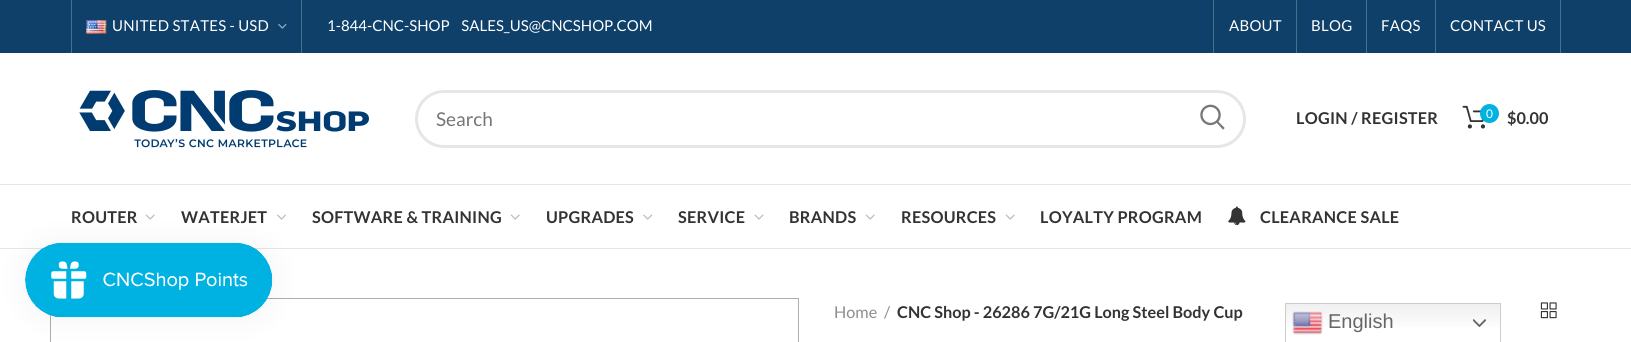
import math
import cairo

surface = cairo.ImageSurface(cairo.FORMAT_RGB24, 1631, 342)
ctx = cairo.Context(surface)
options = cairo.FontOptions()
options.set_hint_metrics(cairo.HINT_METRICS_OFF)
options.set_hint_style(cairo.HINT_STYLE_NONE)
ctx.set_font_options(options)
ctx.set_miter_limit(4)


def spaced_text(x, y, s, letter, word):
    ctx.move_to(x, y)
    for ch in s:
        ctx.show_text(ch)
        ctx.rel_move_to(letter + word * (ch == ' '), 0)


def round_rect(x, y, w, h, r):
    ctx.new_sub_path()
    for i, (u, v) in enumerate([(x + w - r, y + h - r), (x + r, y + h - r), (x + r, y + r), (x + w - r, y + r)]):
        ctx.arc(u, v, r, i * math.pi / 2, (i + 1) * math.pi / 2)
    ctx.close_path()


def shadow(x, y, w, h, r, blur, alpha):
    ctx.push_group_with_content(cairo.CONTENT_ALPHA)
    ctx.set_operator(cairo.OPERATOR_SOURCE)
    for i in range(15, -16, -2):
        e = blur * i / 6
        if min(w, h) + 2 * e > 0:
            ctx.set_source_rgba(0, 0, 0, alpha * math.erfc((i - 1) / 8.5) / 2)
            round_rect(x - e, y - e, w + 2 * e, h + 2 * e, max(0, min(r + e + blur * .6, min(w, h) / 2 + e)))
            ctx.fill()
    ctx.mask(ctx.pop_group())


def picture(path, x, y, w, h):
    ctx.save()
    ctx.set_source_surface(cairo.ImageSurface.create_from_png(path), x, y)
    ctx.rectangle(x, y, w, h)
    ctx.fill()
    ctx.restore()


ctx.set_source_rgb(1, 1, 1)
ctx.paint()
ctx.set_source_rgb(0.055, 0.251, 0.416)
ctx.rectangle(0, 0, 1631, 53)
ctx.fill()
ctx.set_source_rgb(0.29, 0.439, 0.561)
ctx.rectangle(301, 0, 1, 53)
ctx.fill()
ctx.rectangle(71, 0, 1, 53)
ctx.fill()
picture("img1.png", 86, 20, 21, 14)
ctx.select_font_face("Lato")
ctx.set_font_size(15)
ctx.set_source_rgb(1, 1, 1)
spaced_text(112, 31, "UNITED STATES - USD", 0.25, 0)
picture("img2.png", 278, 23, 9, 6)
ctx.move_to(327, 31)
ctx.show_text("1-844-CNC-SHOP    SALES_US@CNCSHOP.COM")
ctx.set_source_rgb(0.29, 0.439, 0.561)
ctx.rectangle(1560, 0, 1, 53)
ctx.fill()
ctx.rectangle(1213, 0, 1, 53)
ctx.fill()
ctx.rectangle(1296, 0, 1, 53)
ctx.fill()
ctx.set_source_rgb(1, 1, 1)
spaced_text(1229, 31, "ABOUT", 0.25, 0)
ctx.set_source_rgb(0.29, 0.439, 0.561)
ctx.rectangle(1366, 0, 1, 53)
ctx.fill()
ctx.set_source_rgb(1, 1, 1)
spaced_text(1311, 31, "BLOG", 0.25, 0)
ctx.set_source_rgb(0.29, 0.439, 0.561)
ctx.rectangle(1435, 0, 1, 53)
ctx.fill()
ctx.set_source_rgb(1, 1, 1)
spaced_text(1381, 31, "FAQS", 0.25, 0)
spaced_text(1450, 31, "CONTACT US", 0.25, 0)
picture("img3.png", 79, 90, 290, 58)
round_rect(416.5, 91.5, 828, 55, 27.5)
ctx.set_source_rgb(0.902, 0.902, 0.902)
ctx.set_line_width(3)
ctx.stroke()
ctx.set_font_size(19)
ctx.set_source_rgb(0.459, 0.459, 0.459)
ctx.move_to(436, 126)
ctx.show_text("Search")
picture("img4.png", 1200, 104, 25, 26)
ctx.select_font_face("Lato", cairo.FONT_SLANT_NORMAL, cairo.FONT_WEIGHT_BOLD)
ctx.set_font_size(16.25)
ctx.set_source_rgb(0.2, 0.2, 0.2)
spaced_text(1296, 124, "LOGIN / REGISTER", 0.25, 0)
picture("img5.png", 1462, 105, 23, 24)
ctx.set_source_rgb(0, 0.698, 0.886)
ctx.arc(1489.5, 113.5, 9.5, 0, 2 * math.pi)
ctx.fill()
ctx.select_font_face("Lato")
ctx.set_font_size(12)
ctx.set_source_rgb(1, 1, 1)
ctx.move_to(1486, 118)
ctx.show_text("0")
ctx.select_font_face("Lato", cairo.FONT_SLANT_NORMAL, cairo.FONT_WEIGHT_BOLD)
ctx.set_font_size(16.25)
ctx.set_source_rgb(0.2, 0.2, 0.2)
ctx.move_to(1507, 124)
ctx.show_text("$0.00")
ctx.set_source_rgb(0.902, 0.902, 0.902)
ctx.rectangle(0, 184, 1631, 1)
ctx.fill()
ctx.rectangle(0, 248, 1631, 1)
ctx.fill()
ctx.set_source_rgb(0.2, 0.2, 0.2)
spaced_text(71, 223, "ROUTER", 0.25, 0)
picture("img6.png", 145, 214, 10, 6)
spaced_text(181, 223, "WATERJET", 0.25, 0)
picture("img7.png", 277, 214, 9, 6)
spaced_text(312, 223, "SOFTWARE & TRAINING", 0.25, 0)
picture("img6.png", 510, 214, 10, 6)
spaced_text(546, 223, "UPGRADES", 0.25, 0)
picture("img8.png", 643, 214, 10, 6)
spaced_text(678, 223, "SERVICE", 0.25, 0)
picture("img9.png", 754, 214, 10, 6)
spaced_text(789, 223, "BRANDS", 0.25, 0)
picture("img6.png", 865, 214, 10, 6)
spaced_text(901, 223, "RESOURCES", 0.25, 0)
picture("img6.png", 1005, 214, 10, 6)
spaced_text(1040, 223, "LOYALTY PROGRAM", 0.25, 0)
picture("img10.png", 1228, 206, 18, 20)
spaced_text(1260, 223, "CLEARANCE SALE", 0.25, 0)
ctx.rectangle(50.5, 298.5, 748, 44)
ctx.set_source_rgb(0.678, 0.678, 0.675)
ctx.set_line_width(1)
ctx.stroke()
ctx.select_font_face("Lato")
ctx.set_source_rgb(0.557, 0.557, 0.557)
ctx.move_to(834, 318)
ctx.show_text("Home")
ctx.move_to(884, 318)
ctx.show_text("/")
ctx.select_font_face("Lato", cairo.FONT_SLANT_NORMAL, cairo.FONT_WEIGHT_BOLD)
ctx.set_source_rgb(0.2, 0.2, 0.2)
ctx.move_to(897, 318)
ctx.show_text("CNC Shop - 26286 7G/21G Long Steel Body Cup")
picture("img11.png", 1540, 302, 17, 17)
ctx.set_source_rgb(0, 0, 0)
shadow(25, 243, 248, 75, 37.5, 15.5, 0.05)
picture("img12.png", 25, 242, 248, 76)
gradient = cairo.LinearGradient(1393, 303, 1393, 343)
gradient.add_color_stop_rgba(0, 0.937, 0.937, 0.937, 1)
gradient.add_color_stop_rgba(0.7, 1, 1, 1, 1)
ctx.set_source(gradient)
ctx.rectangle(1286, 304, 214, 23)
ctx.fill()
ctx.rectangle(1285.5, 303.5, 215, 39)
ctx.set_source_rgb(0.8, 0.8, 0.8)
ctx.stroke()
picture("img13.png", 1292, 311, 31, 24)
ctx.select_font_face("Liberation Sans")
ctx.set_font_size(20)
ctx.set_source_rgb(0.4, 0.4, 0.4)
ctx.move_to(1328, 328)
ctx.show_text("English")
picture("img14.png", 1473, 319, 13, 9)
surface.write_to_png("page.png")
